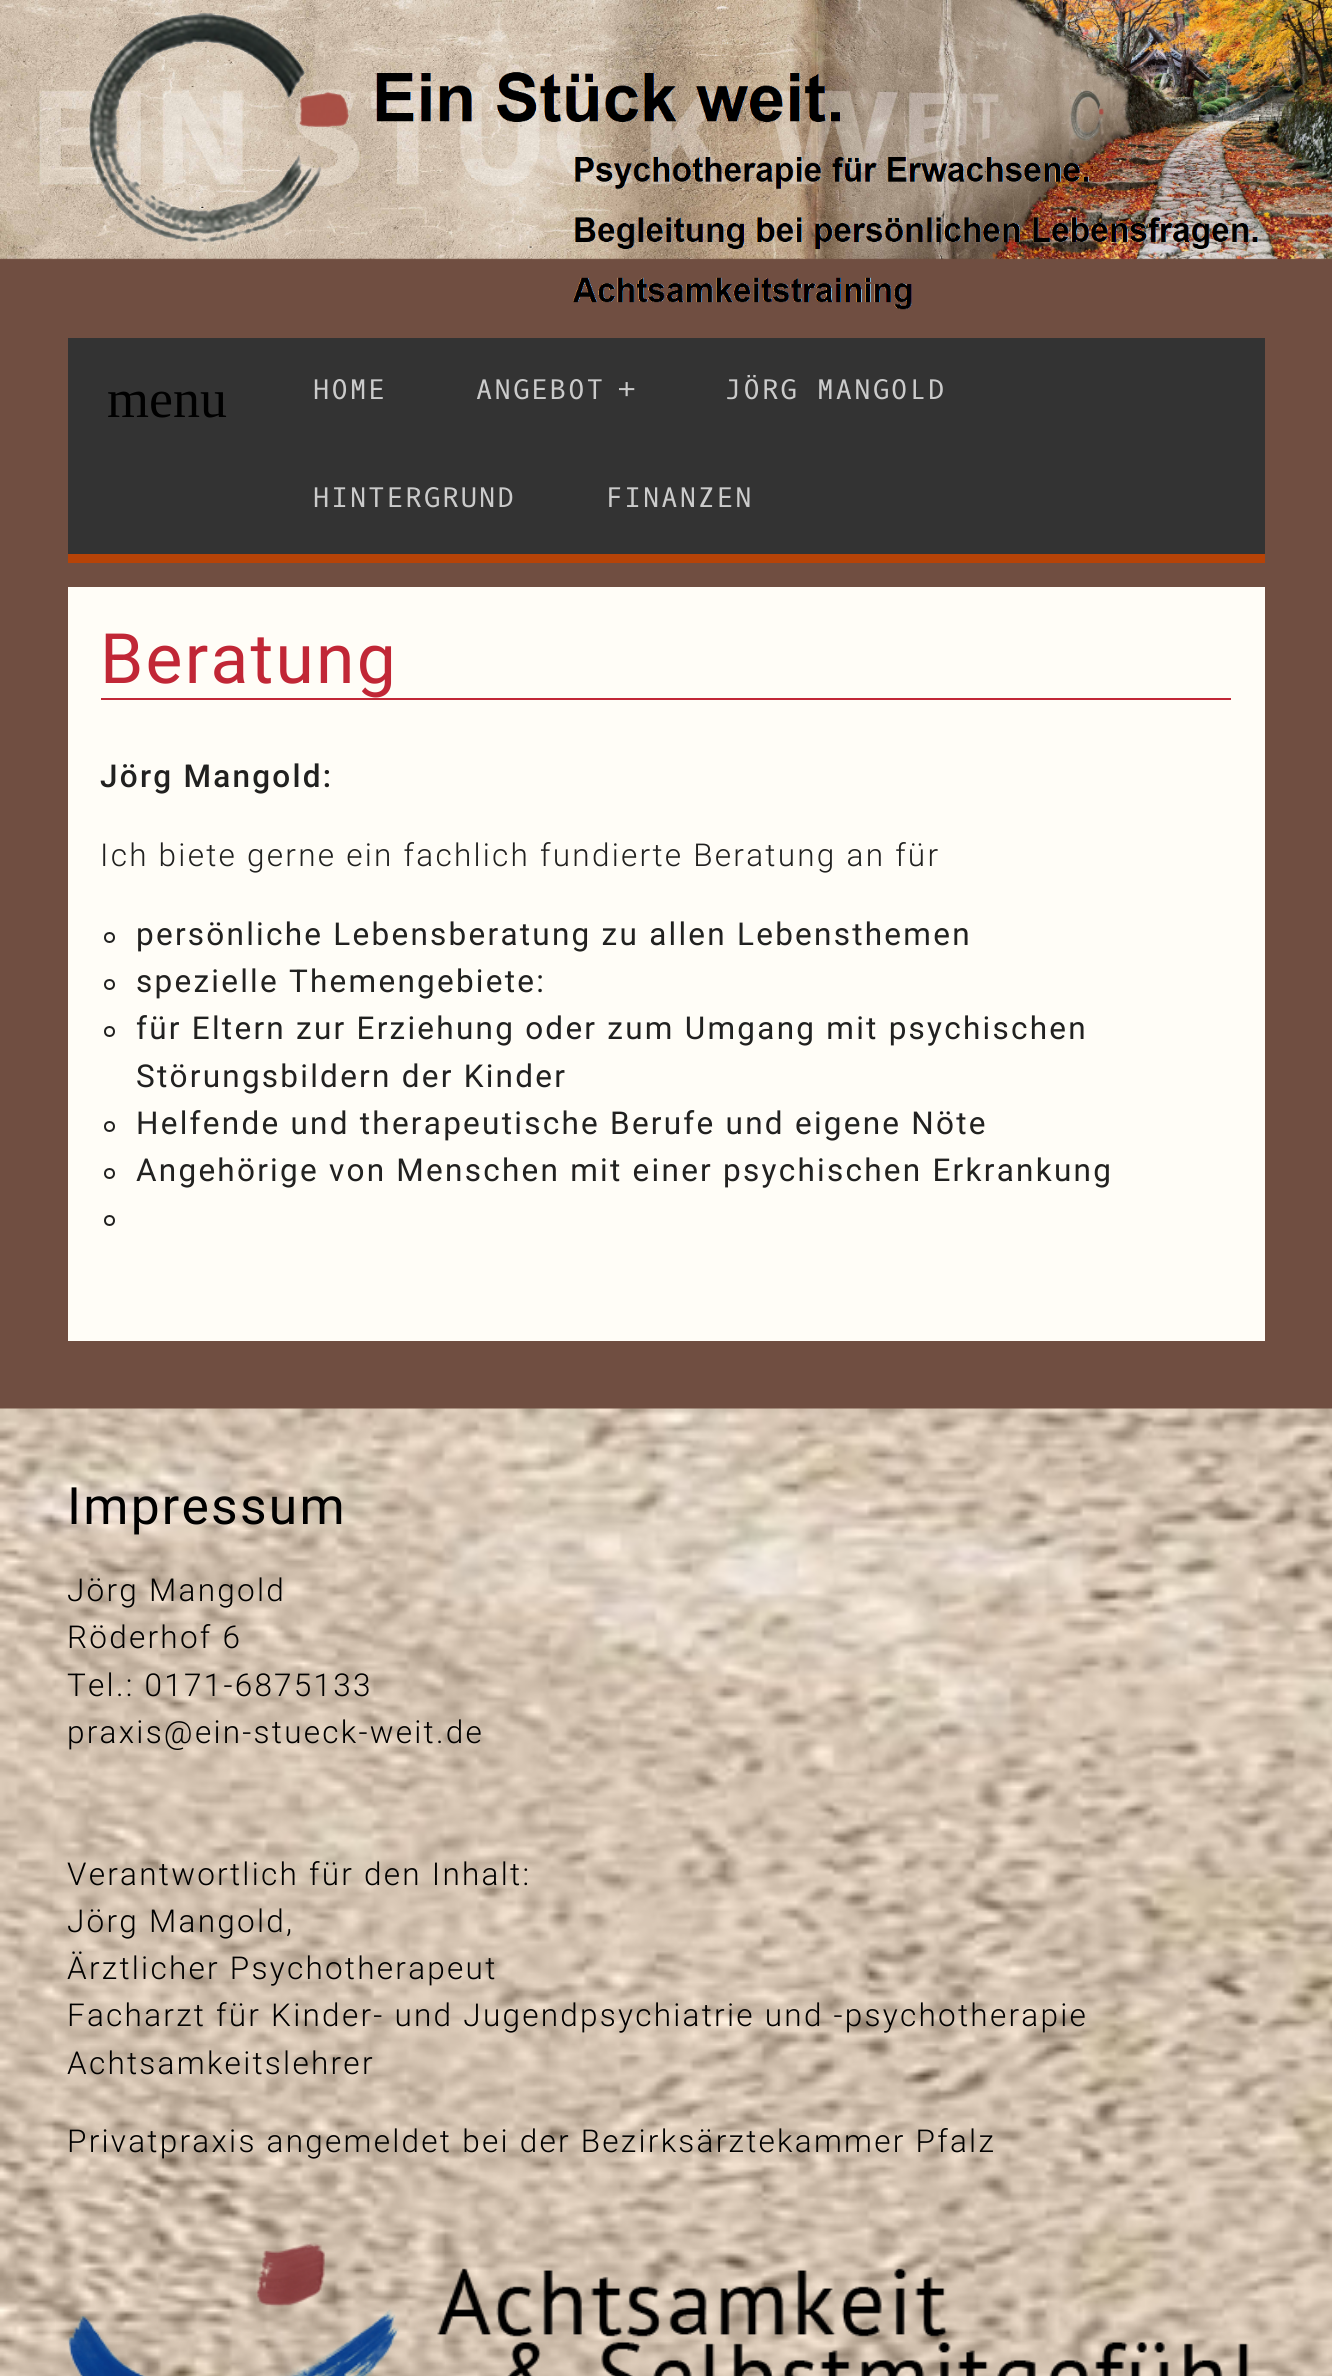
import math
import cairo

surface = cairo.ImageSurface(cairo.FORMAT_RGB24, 1332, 2376)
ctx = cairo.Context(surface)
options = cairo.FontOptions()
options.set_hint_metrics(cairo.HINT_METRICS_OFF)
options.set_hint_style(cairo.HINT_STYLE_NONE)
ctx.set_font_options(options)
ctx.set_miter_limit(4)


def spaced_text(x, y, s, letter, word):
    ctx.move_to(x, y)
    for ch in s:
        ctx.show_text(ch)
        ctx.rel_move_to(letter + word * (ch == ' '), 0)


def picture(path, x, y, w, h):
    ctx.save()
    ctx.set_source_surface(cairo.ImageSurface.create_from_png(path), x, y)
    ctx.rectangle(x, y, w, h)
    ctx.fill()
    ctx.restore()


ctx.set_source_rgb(0.439, 0.306, 0.255)
ctx.paint()
picture("img1.png", 0, 0, 1332, 260)
picture("img2.png", 89, 13, 1169, 297)
ctx.set_source_rgb(0.2, 0.2, 0.2)
ctx.rectangle(68, 338, 1197, 216)
ctx.fill()
ctx.select_font_face("Liberation Serif")
ctx.set_font_size(54)
ctx.set_source_rgb(0, 0, 0)
ctx.move_to(107, 417)
ctx.show_text("menu")
ctx.set_source_rgb(0.718, 0.263, 0.031)
ctx.rectangle(68, 554, 1197, 9)
ctx.fill()
ctx.select_font_face("Oxygen Mono")
ctx.set_font_size(27)
ctx.set_source_rgb(0.796, 0.796, 0.796)
spaced_text(313, 399, "HOME", 2.25, 0)
spaced_text(476, 399, "ANGEBOT", 2.25, 0)
spaced_text(617, 399, "+", 2.25, 0)
spaced_text(725, 399, "JÖRG MANGOLD", 2.25, 0)
spaced_text(313, 507, "HINTERGRUND", 2.25, 0)
spaced_text(606, 507, "FINANZEN", 2.25, 0)
ctx.set_source_rgb(1, 0.992, 0.965)
ctx.rectangle(68, 587, 1197, 754)
ctx.fill()
ctx.set_source_rgb(0.757, 0.153, 0.212)
ctx.rectangle(101, 698, 1130, 2)
ctx.fill()
ctx.select_font_face("Roboto")
ctx.set_font_size(69.5)
spaced_text(100, 683, "Beratung", 2.25, 0)
ctx.select_font_face("Roboto Medium")
ctx.set_font_size(31.5)
ctx.set_source_rgb(0.129, 0.129, 0.125)
spaced_text(100, 787, "Jörg Mangold:", 2.25, 0)
ctx.select_font_face("Roboto Light")
spaced_text(100, 866, "Ich biete gerne ein fachlich fundierte Beratung an für", 2.25, 0)
ctx.new_path()
ctx.arc(109.5, 937.5, 4.5, 0, 2 * math.pi)
ctx.stroke()
ctx.select_font_face("Roboto")
spaced_text(136, 945, "persönliche Lebensberatung zu allen Lebensthemen", 2.25, 0)
ctx.new_path()
ctx.arc(109.5, 984.5, 4.5, 0, 2 * math.pi)
ctx.stroke()
spaced_text(136, 992, "spezielle Themengebiete:", 2.25, 0)
ctx.new_path()
ctx.arc(109.5, 1031.5, 4.5, 0, 2 * math.pi)
ctx.stroke()
spaced_text(136, 1039, "für Eltern zur Erziehung oder zum Umgang mit psychischen", 2.25, 0)
spaced_text(136, 1087, "Störungsbildern der Kinder", 2.25, 0)
ctx.new_path()
ctx.arc(109.5, 1126.5, 4.5, 0, 2 * math.pi)
ctx.stroke()
spaced_text(136, 1134, "Helfende und therapeutische Berufe und eigene Nöte", 2.25, 0)
ctx.new_path()
ctx.arc(109.5, 1173.5, 4.5, 0, 2 * math.pi)
ctx.stroke()
spaced_text(136, 1181, "Angehörige von Menschen mit einer psychischen Erkrankung", 2.25, 0)
ctx.new_path()
ctx.arc(109.5, 1220.5, 4.5, 0, 2 * math.pi)
ctx.stroke()
picture("img3.png", 0, 1408, 1332, 968)
ctx.set_font_size(51.5)
ctx.set_source_rgb(0, 0, 0)
spaced_text(67, 1524, "Impressum", 2.25, 0)
ctx.select_font_face("Roboto Light")
ctx.set_font_size(31.5)
spaced_text(67, 1601, "Jörg Mangold", 2.25, 0)
spaced_text(67, 1648, "Röderhof 6", 2.25, 0)
spaced_text(67, 1696, "Tel.: 0171-6875133", 2.25, 0)
spaced_text(67, 1743, "praxis@ein-stueck-weit.de", 2.25, 0)
spaced_text(67, 1885, "Verantwortlich für den Inhalt:", 2.25, 0)
spaced_text(67, 1932, "Jörg Mangold,", 2.25, 0)
spaced_text(67, 1979, "Ärztlicher Psychotherapeut", 2.25, 0)
spaced_text(67, 2026, "Facharzt für Kinder- und Jugendpsychiatrie und -psychotherapie", 2.25, 0)
spaced_text(67, 2074, "Achtsamkeitslehrer", 2.25, 0)
spaced_text(67, 2152, "Privatpraxis angemeldet bei der Bezirksärztekammer Pfalz", 2.25, 0)
picture("img4.png", 67, 2242, 1182, 134)
surface.write_to_png("page.png")
